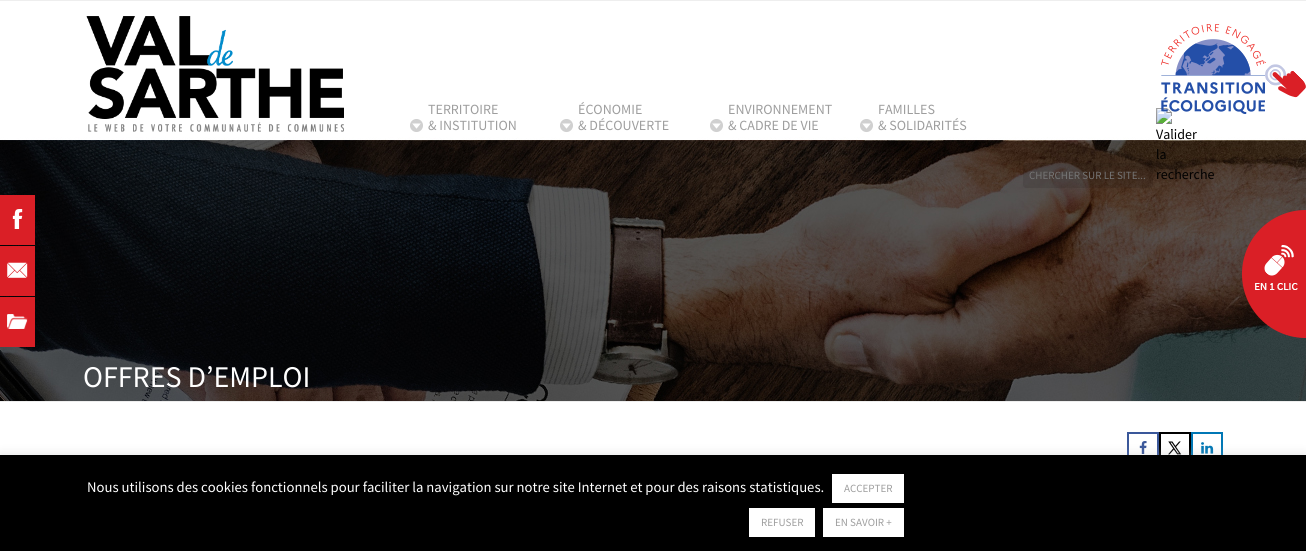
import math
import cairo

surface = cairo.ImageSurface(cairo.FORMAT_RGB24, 1306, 551)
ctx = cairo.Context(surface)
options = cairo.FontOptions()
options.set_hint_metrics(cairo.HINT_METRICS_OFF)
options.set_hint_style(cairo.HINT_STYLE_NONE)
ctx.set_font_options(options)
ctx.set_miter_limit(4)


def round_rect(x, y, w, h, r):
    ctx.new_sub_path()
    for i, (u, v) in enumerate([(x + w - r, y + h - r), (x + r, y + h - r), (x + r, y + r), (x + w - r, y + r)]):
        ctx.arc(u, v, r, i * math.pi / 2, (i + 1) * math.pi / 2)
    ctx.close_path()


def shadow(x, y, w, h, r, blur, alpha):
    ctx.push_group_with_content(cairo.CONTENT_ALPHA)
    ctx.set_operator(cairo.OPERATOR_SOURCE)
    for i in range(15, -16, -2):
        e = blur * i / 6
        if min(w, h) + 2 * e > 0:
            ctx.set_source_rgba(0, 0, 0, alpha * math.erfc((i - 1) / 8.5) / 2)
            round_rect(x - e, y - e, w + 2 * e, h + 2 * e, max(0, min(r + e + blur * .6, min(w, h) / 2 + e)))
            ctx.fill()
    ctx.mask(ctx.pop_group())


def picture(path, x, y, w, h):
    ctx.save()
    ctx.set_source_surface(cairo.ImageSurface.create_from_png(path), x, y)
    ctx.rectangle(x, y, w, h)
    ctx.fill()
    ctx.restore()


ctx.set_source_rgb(1, 1, 1)
ctx.paint()
ctx.set_source_rgb(0.933, 0.933, 0.933)
ctx.rectangle(0, 0, 1306, 402)
ctx.fill()
picture("img9.png", 0, 1, 1306, 400)
picture("img8.png", 1156, 108, 21, 22)
picture("img1.png", 1161, 24, 145, 90)
picture("img2.png", 0, 195, 35, 50)
picture("img3.png", 86, 16, 258, 116)
picture("img4.png", 410, 119, 13, 13)
ctx.select_font_face("Source Sans Pro")
ctx.set_font_size(14)
ctx.set_source_rgb(0.62, 0.62, 0.62)
ctx.move_to(428, 114)
ctx.show_text("TERRITOIRE")
ctx.move_to(428, 130)
ctx.show_text("& INSTITUTION")
picture("img5.png", 560, 119, 137, 21)
ctx.move_to(578, 114)
ctx.show_text("ÉCONOMIE")
ctx.move_to(578, 130)
ctx.show_text("& DÉCOUVERTE")
picture("img6.png", 710, 119, 22, 21)
ctx.move_to(728, 114)
ctx.show_text("ENVIRONNEMENT")
ctx.move_to(728, 130)
ctx.show_text("& CADRE DE VIE")
picture("img7.png", 860, 119, 77, 21)
ctx.move_to(878, 114)
ctx.show_text("FAMILLES")
ctx.move_to(878, 130)
ctx.show_text("& SOLIDARITÉS")
ctx.set_source_rgba(0, 0, 0, 0.1)
round_rect(1023, 163, 130, 25, 3)
ctx.fill()
ctx.set_font_size(11)
ctx.set_source_rgb(0.459, 0.459, 0.459)
ctx.move_to(1029, 179)
ctx.show_text("CHERCHER SUR LE SITE...")
ctx.set_font_size(14)
ctx.set_source_rgb(0, 0, 0)
ctx.move_to(1156, 139)
ctx.show_text("Valider")
ctx.move_to(1156, 159)
ctx.show_text("la")
ctx.move_to(1156, 179)
ctx.show_text("recherche")
ctx.set_font_size(30)
ctx.set_source_rgb(1, 1, 1)
ctx.move_to(83, 387)
ctx.show_text("OFFRES D’EMPLOI")
ctx.rectangle(1128, 433, 30, 30)
ctx.set_source_rgb(0.227, 0.341, 0.604)
ctx.stroke()
picture("img10.png", 1139, 441, 8, 13)
ctx.rectangle(1160, 433, 30, 30)
ctx.set_source_rgb(0, 0, 0)
ctx.stroke()
picture("img11.png", 1168, 441, 14, 14)
ctx.rectangle(1192, 433, 30, 30)
ctx.set_source_rgb(0, 0.467, 0.71)
ctx.stroke()
picture("img12.png", 1201, 442, 13, 12)
picture("img13.png", 1242, 210, 64, 128)
picture("img14.png", 0, 246, 35, 50)
picture("img15.png", 0, 297, 35, 50)
ctx.set_source_rgb(0.675, 0.671, 0.671)
shadow(0, 454, 1306, 96, 0, 5, 0.3)
ctx.set_source_rgb(0, 0, 0)
ctx.rectangle(0, 455, 1306, 96)
ctx.fill()
ctx.set_font_size(14.67)
ctx.set_source_rgb(1, 1, 1)
ctx.move_to(87, 492)
ctx.show_text("Nous utilisons des cookies fonctionnels pour faciliter la navigation sur notre site Internet et pour des raisons statistiques.")
ctx.rectangle(832, 474, 72, 29)
ctx.fill()
ctx.set_font_size(11)
ctx.set_source_rgb(0.62, 0.62, 0.62)
ctx.move_to(844, 492)
ctx.show_text("ACCEPTER")
ctx.set_source_rgb(1, 1, 1)
ctx.rectangle(749, 508, 66, 29)
ctx.fill()
ctx.set_source_rgb(0.62, 0.62, 0.62)
ctx.move_to(761, 526)
ctx.show_text("REFUSER")
ctx.set_source_rgb(1, 1, 1)
ctx.rectangle(823, 508, 81, 29)
ctx.fill()
ctx.set_source_rgb(0.62, 0.62, 0.62)
ctx.move_to(835, 526)
ctx.show_text("EN SAVOIR +")
surface.write_to_png("page.png")
